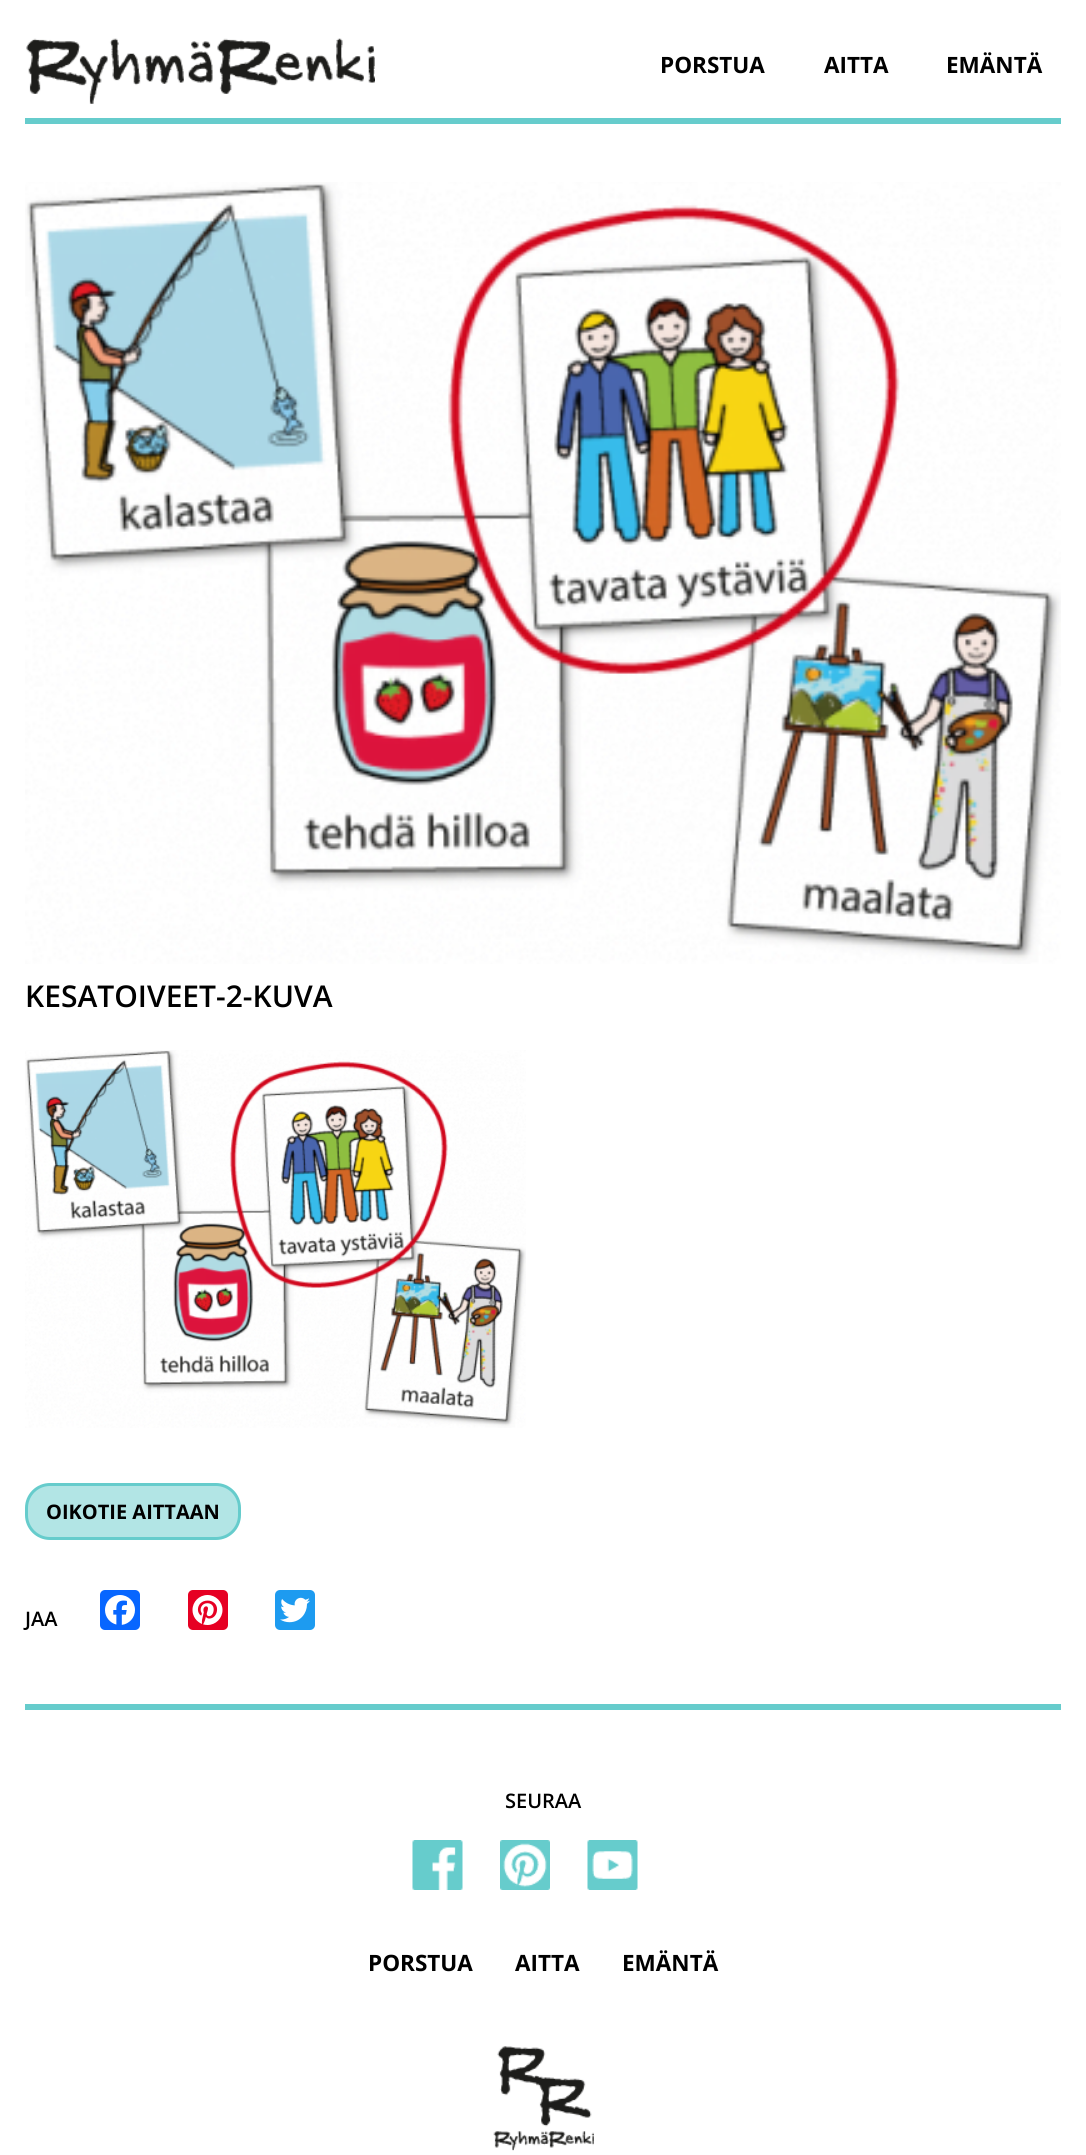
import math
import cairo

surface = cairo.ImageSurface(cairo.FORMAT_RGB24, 1086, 2155)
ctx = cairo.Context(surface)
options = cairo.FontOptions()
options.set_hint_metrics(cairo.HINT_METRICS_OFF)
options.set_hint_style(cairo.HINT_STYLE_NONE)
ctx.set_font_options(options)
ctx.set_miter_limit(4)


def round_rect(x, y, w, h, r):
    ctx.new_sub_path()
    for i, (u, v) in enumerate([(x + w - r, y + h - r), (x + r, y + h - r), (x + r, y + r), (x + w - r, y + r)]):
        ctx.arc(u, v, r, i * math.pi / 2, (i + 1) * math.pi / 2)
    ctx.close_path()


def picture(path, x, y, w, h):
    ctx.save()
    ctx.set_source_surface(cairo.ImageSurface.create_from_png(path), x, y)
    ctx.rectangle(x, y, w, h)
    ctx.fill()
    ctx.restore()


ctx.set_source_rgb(1, 1, 1)
ctx.paint()
ctx.set_source_rgb(0.4, 0.8, 0.8)
ctx.rectangle(25, 118, 1036, 6)
ctx.fill()
picture("img1.png", 26, 38, 349, 66)
ctx.select_font_face("Open Sans", cairo.FONT_SLANT_NORMAL, cairo.FONT_WEIGHT_BOLD)
ctx.set_font_size(22.5)
ctx.set_source_rgb(0, 0, 0)
ctx.move_to(660, 73)
ctx.show_text("PORSTUA")
ctx.move_to(824, 73)
ctx.show_text("AITTA")
ctx.move_to(946, 73)
ctx.show_text("EMÄNTÄ")
picture("img2.png", 25, 182, 1036, 782)
ctx.select_font_face("Open Sans SemiBold")
ctx.set_font_size(30)
ctx.move_to(25, 1007)
ctx.show_text("KESATOIVEET-2-KUVA")
picture("img3.png", 25, 1050, 501, 378)
ctx.set_source_rgb(0.698, 0.898, 0.898)
round_rect(26.5, 1484.5, 213, 54, 23.5)
ctx.fill_preserve()
ctx.set_source_rgb(0.4, 0.8, 0.8)
ctx.set_line_width(3)
ctx.stroke()
ctx.select_font_face("Open Sans", cairo.FONT_SLANT_NORMAL, cairo.FONT_WEIGHT_BOLD)
ctx.set_font_size(20)
ctx.set_source_rgb(0, 0, 0)
ctx.move_to(46, 1519)
ctx.show_text("OIKOTIE AITTAAN")
ctx.select_font_face("Open Sans SemiBold")
ctx.move_to(25, 1626)
ctx.show_text("JAA")
ctx.set_source_rgb(0.031, 0.4, 1)
round_rect(100, 1590, 40, 40, 5)
ctx.fill()
picture("img4.png", 105, 1595, 30, 30)
ctx.set_source_rgb(0.902, 0, 0.137)
round_rect(188, 1590, 40, 40, 5)
ctx.fill()
picture("img5.png", 192, 1595, 31, 30)
ctx.set_source_rgb(0.114, 0.608, 0.941)
round_rect(275, 1590, 40, 40, 5)
ctx.fill()
picture("img6.png", 280, 1597, 30, 26)
ctx.set_source_rgb(0.4, 0.8, 0.8)
ctx.rectangle(25, 1704, 1036, 6)
ctx.fill()
ctx.set_source_rgb(0, 0, 0)
ctx.move_to(505, 1808)
ctx.show_text("SEURAA")
picture("img7.png", 412, 1840, 51, 50)
picture("img8.png", 500, 1840, 50, 50)
picture("img9.png", 587, 1840, 51, 50)
ctx.select_font_face("Open Sans", cairo.FONT_SLANT_NORMAL, cairo.FONT_WEIGHT_BOLD)
ctx.set_font_size(22.5)
ctx.move_to(368, 1971)
ctx.show_text("PORSTUA")
ctx.move_to(515, 1971)
ctx.show_text("AITTA")
ctx.move_to(622, 1971)
ctx.show_text("EMÄNTÄ")
picture("img10.png", 493, 2046, 101, 105)
surface.write_to_png("page.png")
